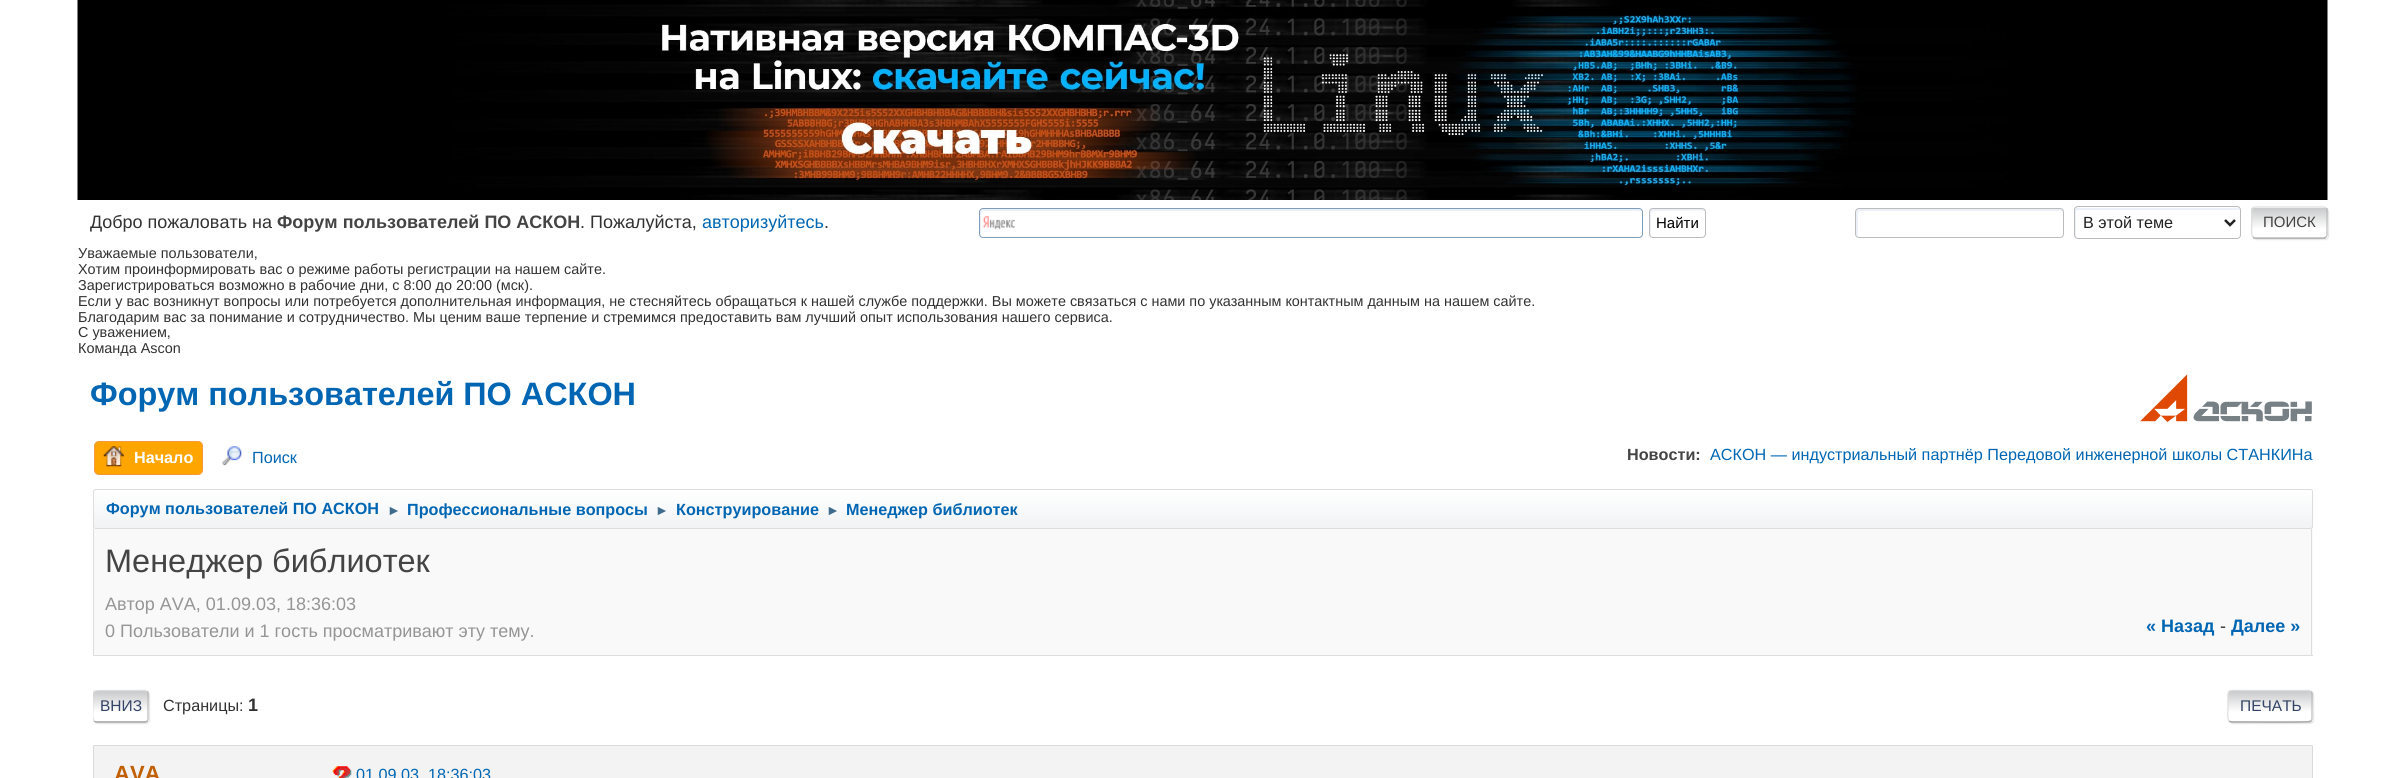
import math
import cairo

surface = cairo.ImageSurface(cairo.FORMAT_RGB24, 2404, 778)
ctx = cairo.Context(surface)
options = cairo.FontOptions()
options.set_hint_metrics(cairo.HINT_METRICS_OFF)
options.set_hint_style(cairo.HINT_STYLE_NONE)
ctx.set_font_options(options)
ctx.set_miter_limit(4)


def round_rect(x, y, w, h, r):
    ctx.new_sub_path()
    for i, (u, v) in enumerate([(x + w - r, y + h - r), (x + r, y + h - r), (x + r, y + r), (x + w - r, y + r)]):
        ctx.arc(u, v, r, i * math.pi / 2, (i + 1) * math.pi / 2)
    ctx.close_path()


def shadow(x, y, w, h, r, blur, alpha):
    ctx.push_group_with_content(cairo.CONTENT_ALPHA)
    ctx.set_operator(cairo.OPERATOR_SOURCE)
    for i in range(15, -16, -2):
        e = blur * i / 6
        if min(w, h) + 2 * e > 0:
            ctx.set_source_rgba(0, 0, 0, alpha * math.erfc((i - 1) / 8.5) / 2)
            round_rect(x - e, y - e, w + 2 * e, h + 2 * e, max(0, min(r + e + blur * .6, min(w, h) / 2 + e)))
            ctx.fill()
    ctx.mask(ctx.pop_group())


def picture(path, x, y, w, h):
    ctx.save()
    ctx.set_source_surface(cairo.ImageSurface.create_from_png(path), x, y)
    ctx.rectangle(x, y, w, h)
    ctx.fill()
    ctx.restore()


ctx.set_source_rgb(1, 1, 1)
ctx.paint()
picture("img1.png", 77, 0, 2251, 200)
ctx.select_font_face("Liberation Sans")
ctx.set_font_size(18)
ctx.set_source_rgb(0.196, 0.196, 0.196)
ctx.move_to(90, 228)
ctx.show_text("Добро пожаловать на")
ctx.select_font_face("Liberation Sans", cairo.FONT_SLANT_NORMAL, cairo.FONT_WEIGHT_BOLD)
ctx.set_source_rgb(0.267, 0.267, 0.267)
ctx.move_to(277, 228)
ctx.show_text("Форум пользователей ПО АСКОН")
ctx.select_font_face("Liberation Sans")
ctx.set_source_rgb(0.196, 0.196, 0.196)
ctx.move_to(580, 228)
ctx.show_text(". Пожалуйста,")
ctx.set_source_rgb(0, 0.4, 0.702)
ctx.move_to(702, 228)
ctx.show_text("авторизуйтесь")
ctx.set_source_rgb(0.196, 0.196, 0.196)
ctx.move_to(824, 228)
ctx.show_text(".")
picture("img2.png", 982, 216, 33, 14)
ctx.set_source_rgb(0.925, 0.945, 0.973)
ctx.new_path()
ctx.move_to(984, 211)
ctx.line_to(1640, 211)
ctx.line_to(1641, 211)
ctx.curve_to(1641, 210, 1640, 209, 1638, 209)
ctx.line_to(982, 209)
ctx.curve_to(981, 209, 980, 210, 980, 212)
ctx.line_to(980, 234)
ctx.curve_to(980, 234, 980, 235, 981, 236)
ctx.line_to(981, 214)
ctx.curve_to(981, 212, 982, 211, 984, 211)
ctx.close_path()
ctx.fill()
round_rect(979.5, 208.5, 663, 29, 3.5)
ctx.set_source_rgb(0.498, 0.616, 0.725)
ctx.set_line_width(1)
ctx.stroke()
ctx.set_source_rgb(0.925, 0.945, 0.973)
ctx.new_path()
ctx.move_to(1654, 211)
ctx.curve_to(1659, 211, 1704, 210, 1705, 211)
ctx.curve_to(1705, 210, 1704, 209, 1702, 209)
ctx.line_to(1652, 209)
ctx.curve_to(1651, 209, 1650, 210, 1650, 212)
ctx.line_to(1650, 234)
ctx.curve_to(1650, 234, 1650, 235, 1651, 236)
ctx.line_to(1651, 214)
ctx.curve_to(1651, 212, 1652, 211, 1654, 211)
ctx.close_path()
ctx.fill()
round_rect(1649.5, 208.5, 56, 29, 3.5)
ctx.set_source_rgb(0.733, 0.733, 0.733)
ctx.stroke()
ctx.set_font_size(15)
ctx.set_source_rgb(0, 0, 0)
ctx.move_to(1656, 228)
ctx.show_text("Найти")
ctx.set_source_rgb(0.925, 0.945, 0.973)
ctx.new_path()
ctx.move_to(1860, 211)
ctx.line_to(2061, 211)
ctx.line_to(2063, 212)
ctx.curve_to(2063, 210, 2062, 209, 2060, 209)
ctx.line_to(1858, 209)
ctx.curve_to(1857, 209, 1856, 210, 1856, 212)
ctx.line_to(1856, 234)
ctx.curve_to(1856, 235, 1857, 236, 1858, 236)
ctx.line_to(1858, 214)
ctx.curve_to(1858, 212, 1859, 211, 1860, 211)
ctx.close_path()
ctx.fill()
round_rect(1855.5, 208.5, 208, 29, 3.5)
ctx.set_source_rgb(0.733, 0.733, 0.733)
ctx.stroke()
ctx.set_source_rgb(0.925, 0.945, 0.973)
ctx.new_path()
ctx.move_to(2079, 210)
ctx.line_to(2240, 210)
ctx.curve_to(2240, 209, 2239, 208, 2238, 208)
ctx.line_to(2078, 208)
ctx.curve_to(2076, 208, 2075, 209, 2075, 210)
ctx.line_to(2075, 236)
ctx.curve_to(2075, 236, 2075, 237, 2076, 238)
ctx.line_to(2076, 212)
ctx.curve_to(2076, 211, 2077, 210, 2079, 210)
ctx.close_path()
ctx.fill()
round_rect(2074.5, 206.5, 166, 32, 3.5)
ctx.set_source_rgb(0.733, 0.733, 0.733)
ctx.stroke()
ctx.new_path()
ctx.move_to(2225, 220)
ctx.line_to(2230, 225)
ctx.line_to(2235, 220)
ctx.set_source_rgb(0.133, 0.133, 0.133)
ctx.set_line_width(2.5)
ctx.stroke()
ctx.set_font_size(16.2)
ctx.move_to(2083, 228)
ctx.show_text("В этой теме")
ctx.set_source_rgb(0, 0, 0)
shadow(2253, 208, 76, 32, 4, 0.5, 0.1)
ctx.set_source_rgb(1, 1, 1)
round_rect(2251, 206, 77, 33, 4)
ctx.fill()
ctx.save()
round_rect(2251, 206, 77, 33, 4)
ctx.clip()
gradient = cairo.LinearGradient(2289, 208, 2289, 238)
gradient.add_color_stop_rgba(0, 0.788, 0.792, 0.796, 1)
gradient.add_color_stop_rgba(0.7, 1, 1, 1, 1)
ctx.set_source(gradient)
ctx.rectangle(2251, 208, 77, 30)
ctx.fill()
gradient = cairo.LinearGradient(2289, 238, 2289, 268)
gradient.add_color_stop_rgba(0, 0.788, 0.792, 0.796, 1)
gradient.add_color_stop_rgba(0.7, 1, 1, 1, 1)
ctx.set_source(gradient)
ctx.rectangle(2251, 238, 77, 1)
ctx.fill()
ctx.restore()
ctx.new_path()
ctx.move_to(2326, 208)
ctx.curve_to(2326.5, 208.5, 2327, 209, 2327, 210)
ctx.line_to(2327, 235)
ctx.curve_to(2327, 236, 2326.5, 236.5, 2326, 237)
ctx.set_source_rgb(0.733, 0.733, 0.733)
ctx.set_line_width(1.2)
ctx.stroke()
ctx.new_path()
ctx.move_to(2326, 237)
ctx.line_to(2324, 238)
ctx.line_to(2254.5, 238)
ctx.line_to(2253, 237)
ctx.set_source_rgb(0.667, 0.667, 0.667)
ctx.stroke()
ctx.new_path()
ctx.move_to(2253, 237)
ctx.curve_to(2250.5, 235, 2252, 225.5, 2252, 222.5)
ctx.curve_to(2252, 205, 2248.5, 207, 2266.5, 207)
ctx.line_to(2324, 207)
ctx.line_to(2326, 208)
ctx.set_source_rgb(0.867, 0.867, 0.867)
ctx.stroke()
ctx.set_font_size(15)
ctx.set_source_rgb(0.267, 0.267, 0.267)
ctx.move_to(2263, 227)
ctx.show_text("ПОИСК")
ctx.set_font_size(14.4)
ctx.set_source_rgb(0.196, 0.196, 0.196)
ctx.move_to(78, 258)
ctx.show_text("Уважаемые пользователи,")
ctx.move_to(78, 274)
ctx.show_text("Хотим проинформировать вас о режиме работы регистрации на нашем сайте.")
ctx.move_to(78, 290)
ctx.show_text("Зарегистрироваться возможно в рабочие дни, с 8:00 до 20:00 (мск).")
ctx.move_to(78, 306)
ctx.show_text("Если у вас возникнут вопросы или потребуется дополнительная информация, не стесняйтесь обращаться к нашей службе поддержки. Вы можете связаться с нами по указанным контактным данным на нашем сайте.")
ctx.move_to(78, 322)
ctx.show_text("Благодарим вас за понимание и сотрудничество. Мы ценим ваше терпение и стремимся предоставить вам лучший опыт использования нашего сервиса.")
ctx.move_to(78, 337)
ctx.show_text("С уважением,")
ctx.move_to(78, 353)
ctx.show_text("Команда Ascon")
ctx.select_font_face("Liberation Sans", cairo.FONT_SLANT_NORMAL, cairo.FONT_WEIGHT_BOLD)
ctx.set_font_size(32.4)
ctx.set_source_rgb(0, 0.4, 0.702)
ctx.move_to(90, 405)
ctx.show_text("Форум пользователей ПО АСКОН")
picture("img3.png", 2140, 374, 172, 48)
ctx.set_source_rgb(1, 0.647, 0)
round_rect(94.5, 441.5, 108, 33, 4.5)
ctx.fill_preserve()
ctx.set_source_rgb(0.957, 0.604, 0.227)
ctx.set_line_width(1)
ctx.stroke()
picture("img4.png", 103, 446, 21, 21)
ctx.set_font_size(16.2)
ctx.set_source_rgb(1, 1, 1)
ctx.move_to(134, 463)
ctx.show_text("Начало")
picture("img5.png", 222, 446, 20, 20)
ctx.select_font_face("Liberation Sans")
ctx.set_source_rgb(0, 0.4, 0.702)
ctx.move_to(252, 463)
ctx.show_text("Поиск")
ctx.select_font_face("Liberation Sans", cairo.FONT_SLANT_NORMAL, cairo.FONT_WEIGHT_BOLD)
ctx.set_source_rgb(0.267, 0.267, 0.267)
ctx.move_to(1627, 460)
ctx.show_text("Новости:")
ctx.select_font_face("Liberation Sans")
ctx.set_source_rgb(0, 0.4, 0.702)
ctx.move_to(1710, 460)
ctx.show_text("АСКОН — индустриальный партнёр Передовой инженерной школы СТАНКИНа")
ctx.save()
round_rect(93, 489, 2220, 40, 2.5)
ctx.clip()
gradient = cairo.LinearGradient(1203, 490, 1203, 528)
gradient.add_color_stop_rgba(0, 1, 1, 1, 1)
gradient.add_color_stop_rgba(0.95, 0.945, 0.953, 0.961, 1)
ctx.set_source(gradient)
ctx.rectangle(93, 490, 2220, 38)
ctx.fill()
ctx.restore()
round_rect(93.5, 489.5, 2219, 39, 2)
ctx.set_source_rgb(0.867, 0.867, 0.867)
ctx.stroke()
ctx.select_font_face("Liberation Sans", cairo.FONT_SLANT_NORMAL, cairo.FONT_WEIGHT_BOLD)
ctx.set_source_rgb(0, 0.4, 0.702)
ctx.move_to(106, 514)
ctx.show_text("Форум пользователей ПО АСКОН")
ctx.select_font_face("Liberation Sans")
ctx.set_font_size(14)
ctx.set_source_rgb(0.247, 0.42, 0.549)
ctx.move_to(387, 515)
ctx.show_text("►")
ctx.select_font_face("Liberation Sans", cairo.FONT_SLANT_NORMAL, cairo.FONT_WEIGHT_BOLD)
ctx.set_font_size(16.2)
ctx.set_source_rgb(0, 0.4, 0.702)
ctx.move_to(407, 515)
ctx.show_text("Профессиональные вопросы")
ctx.select_font_face("Liberation Sans")
ctx.set_font_size(14)
ctx.set_source_rgb(0.247, 0.42, 0.549)
ctx.move_to(655, 515)
ctx.show_text("►")
ctx.select_font_face("Liberation Sans", cairo.FONT_SLANT_NORMAL, cairo.FONT_WEIGHT_BOLD)
ctx.set_font_size(16.2)
ctx.set_source_rgb(0, 0.4, 0.702)
ctx.move_to(676, 515)
ctx.show_text("Конструирование")
ctx.select_font_face("Liberation Sans")
ctx.set_font_size(14)
ctx.set_source_rgb(0.247, 0.42, 0.549)
ctx.move_to(826, 515)
ctx.show_text("►")
ctx.select_font_face("Liberation Sans", cairo.FONT_SLANT_NORMAL, cairo.FONT_WEIGHT_BOLD)
ctx.set_font_size(16.2)
ctx.set_source_rgb(0, 0.4, 0.702)
ctx.move_to(846, 515)
ctx.show_text("Менеджер библиотек")
ctx.set_source_rgb(0.973, 0.973, 0.973)
ctx.rectangle(94, 529, 2219, 126)
ctx.fill()
ctx.set_source_rgb(0.867, 0.867, 0.867)
ctx.rectangle(2311, 529, 1, 127)
ctx.fill()
ctx.rectangle(93, 655, 2220, 1)
ctx.fill()
ctx.rectangle(93, 529, 1, 127)
ctx.fill()
ctx.select_font_face("Liberation Sans")
ctx.set_font_size(32.5)
ctx.set_source_rgb(0.267, 0.267, 0.267)
ctx.move_to(105, 572)
ctx.show_text("Менеджер библиотек")
ctx.set_font_size(18)
ctx.set_source_rgb(0.584, 0.584, 0.584)
ctx.move_to(105, 610)
ctx.show_text("Автор AVA, 01.09.03, 18:36:03")
ctx.move_to(105, 637)
ctx.show_text("0 Пользователи и 1 гость просматривают эту тему.")
ctx.select_font_face("Liberation Sans", cairo.FONT_SLANT_NORMAL, cairo.FONT_WEIGHT_BOLD)
ctx.set_source_rgb(0, 0.4, 0.702)
ctx.move_to(2146, 632)
ctx.show_text("« Назад")
ctx.select_font_face("Liberation Sans")
ctx.set_source_rgb(0.196, 0.196, 0.196)
ctx.move_to(2220, 632)
ctx.show_text("-")
ctx.select_font_face("Liberation Sans", cairo.FONT_SLANT_NORMAL, cairo.FONT_WEIGHT_BOLD)
ctx.set_source_rgb(0, 0.4, 0.702)
ctx.move_to(2231, 632)
ctx.show_text("Далее »")
ctx.set_source_rgb(0, 0, 0)
shadow(94, 691, 56, 33, 4, 0.5, 0.1)
ctx.set_source_rgb(1, 1, 1)
round_rect(93, 690, 56, 33, 4)
ctx.fill()
ctx.save()
round_rect(93, 690, 56, 33, 4)
ctx.clip()
gradient = cairo.LinearGradient(121, 691, 121, 721)
gradient.add_color_stop_rgba(0, 0.788, 0.792, 0.796, 1)
gradient.add_color_stop_rgba(0.7, 1, 1, 1, 1)
ctx.set_source(gradient)
ctx.rectangle(93, 691, 56, 30)
ctx.fill()
gradient = cairo.LinearGradient(121, 721, 121, 751)
gradient.add_color_stop_rgba(0, 0.788, 0.792, 0.796, 1)
gradient.add_color_stop_rgba(0.7, 1, 1, 1, 1)
ctx.set_source(gradient)
ctx.rectangle(93, 721, 56, 2)
ctx.fill()
ctx.restore()
ctx.new_path()
ctx.move_to(147, 691.5)
ctx.curve_to(148, 692, 148, 693, 148, 694)
ctx.line_to(148, 719)
ctx.curve_to(148, 719.5, 148, 720.5, 147, 721)
ctx.set_source_rgb(0.733, 0.733, 0.733)
ctx.set_line_width(1.2)
ctx.stroke()
ctx.new_path()
ctx.move_to(147, 721)
ctx.line_to(145.5, 722)
ctx.line_to(96, 722)
ctx.line_to(94, 721)
ctx.set_source_rgb(0.667, 0.667, 0.667)
ctx.stroke()
ctx.save()
ctx.rectangle(93, 675, 2220, 63)
ctx.clip()
ctx.new_path()
ctx.move_to(94, 721)
ctx.curve_to(92, 719, 93, 709, 93, 706)
ctx.curve_to(93, 690.5, 89.5, 690.5, 104.5, 690.5)
ctx.line_to(137, 690.5)
ctx.curve_to(137.5, 690.5, 145, 689.5, 147, 691.5)
ctx.set_source_rgb(0.867, 0.867, 0.867)
ctx.stroke()
ctx.restore()
ctx.select_font_face("Liberation Sans")
ctx.set_font_size(15.5)
ctx.set_source_rgb(0.2, 0.267, 0.4)
ctx.move_to(100, 711)
ctx.show_text("ВНИЗ")
ctx.set_font_size(16.2)
ctx.set_source_rgb(0.196, 0.196, 0.196)
ctx.move_to(163, 711)
ctx.show_text("Страницы:")
ctx.select_font_face("Liberation Sans", cairo.FONT_SLANT_NORMAL, cairo.FONT_WEIGHT_BOLD)
ctx.set_font_size(18)
ctx.move_to(248, 711)
ctx.show_text("1")
ctx.set_source_rgb(0, 0, 0)
shadow(2229, 691, 85, 33, 4, 0.5, 0.1)
ctx.set_source_rgb(1, 1, 1)
round_rect(2228, 690, 85, 33, 4)
ctx.fill()
ctx.save()
round_rect(2228, 690, 85, 33, 4)
ctx.clip()
gradient = cairo.LinearGradient(2270, 691, 2270, 721)
gradient.add_color_stop_rgba(0, 0.788, 0.792, 0.796, 1)
gradient.add_color_stop_rgba(0.7, 1, 1, 1, 1)
ctx.set_source(gradient)
ctx.rectangle(2228, 691, 85, 30)
ctx.fill()
gradient = cairo.LinearGradient(2270, 721, 2270, 751)
gradient.add_color_stop_rgba(0, 0.788, 0.792, 0.796, 1)
gradient.add_color_stop_rgba(0.7, 1, 1, 1, 1)
ctx.set_source(gradient)
ctx.rectangle(2228, 721, 85, 2)
ctx.fill()
ctx.restore()
ctx.new_path()
ctx.move_to(2311, 691.5)
ctx.curve_to(2311.5, 692, 2312, 693, 2312, 694)
ctx.line_to(2312, 719)
ctx.curve_to(2312, 719.5, 2311.5, 720.5, 2311, 721)
ctx.set_source_rgb(0.733, 0.733, 0.733)
ctx.stroke()
ctx.new_path()
ctx.move_to(2311, 721)
ctx.line_to(2310.5, 721)
ctx.curve_to(2308.5, 723, 2251.5, 722, 2244, 722)
ctx.line_to(2231, 722)
ctx.line_to(2229, 721)
ctx.set_source_rgb(0.667, 0.667, 0.667)
ctx.stroke()
ctx.new_path()
ctx.move_to(2229, 721)
ctx.curve_to(2227, 719, 2228, 709, 2228, 706)
ctx.curve_to(2228, 688, 2225, 690.5, 2244, 690.5)
ctx.line_to(2309, 690.5)
ctx.line_to(2311, 691.5)
ctx.set_source_rgb(0.867, 0.867, 0.867)
ctx.stroke()
ctx.select_font_face("Liberation Sans")
ctx.set_font_size(15.5)
ctx.set_source_rgb(0.2, 0.267, 0.4)
ctx.move_to(2240, 711)
ctx.show_text("ПЕЧАТЬ")
ctx.set_source_rgb(0.953, 0.953, 0.953)
round_rect(93.5, 745.5, 2219, 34, 0.5)
ctx.fill_preserve()
ctx.set_source_rgb(0.855, 0.855, 0.855)
ctx.set_line_width(1)
ctx.stroke()
ctx.select_font_face("Liberation Sans", cairo.FONT_SLANT_NORMAL, cairo.FONT_WEIGHT_BOLD)
ctx.set_font_size(22)
ctx.set_source_rgb(0.753, 0.376, 0.008)
ctx.move_to(114, 781)
ctx.show_text("AVA")
picture("img6.png", 332, 766, 20, 12)
ctx.select_font_face("Liberation Sans")
ctx.set_font_size(16.2)
ctx.set_source_rgb(0, 0.4, 0.702)
ctx.move_to(356, 780)
ctx.show_text("01.09.03, 18:36:03")
surface.write_to_png("page.png")
